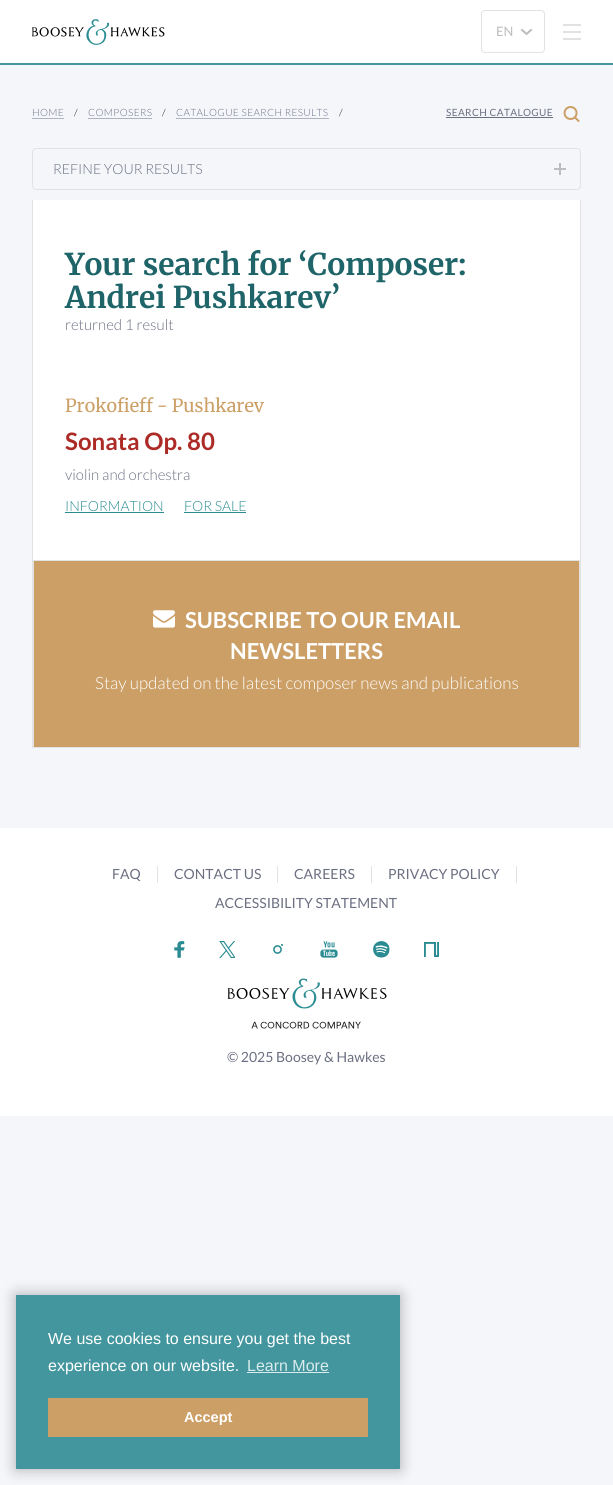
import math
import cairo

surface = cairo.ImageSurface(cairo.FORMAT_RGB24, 613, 1485)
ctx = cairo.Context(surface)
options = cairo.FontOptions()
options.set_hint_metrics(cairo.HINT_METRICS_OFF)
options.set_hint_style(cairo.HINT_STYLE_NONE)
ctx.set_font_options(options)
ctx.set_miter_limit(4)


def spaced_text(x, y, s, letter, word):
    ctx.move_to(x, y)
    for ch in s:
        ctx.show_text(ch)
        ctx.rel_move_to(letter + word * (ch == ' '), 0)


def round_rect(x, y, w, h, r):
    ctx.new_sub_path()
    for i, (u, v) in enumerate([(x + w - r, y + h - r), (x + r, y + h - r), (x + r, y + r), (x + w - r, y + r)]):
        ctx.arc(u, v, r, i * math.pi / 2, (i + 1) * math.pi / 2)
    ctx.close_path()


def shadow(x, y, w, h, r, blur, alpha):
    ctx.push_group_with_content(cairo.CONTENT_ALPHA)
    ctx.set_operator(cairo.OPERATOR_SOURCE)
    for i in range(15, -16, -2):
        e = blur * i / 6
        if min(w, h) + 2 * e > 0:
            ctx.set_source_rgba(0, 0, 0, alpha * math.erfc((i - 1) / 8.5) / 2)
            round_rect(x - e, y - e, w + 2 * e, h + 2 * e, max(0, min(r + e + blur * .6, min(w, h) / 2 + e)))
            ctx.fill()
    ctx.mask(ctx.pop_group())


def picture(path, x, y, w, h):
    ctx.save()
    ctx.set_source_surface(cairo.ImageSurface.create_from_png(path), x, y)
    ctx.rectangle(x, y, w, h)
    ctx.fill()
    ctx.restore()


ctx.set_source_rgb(0.957, 0.961, 0.98)
ctx.paint()
ctx.set_source_rgb(1, 1, 1)
ctx.rectangle(0, 0, 613, 63)
ctx.fill()
picture("img1.png", 32, 19, 133, 26)
round_rect(481.5, 10.5, 63, 42, 3.5)
ctx.set_source_rgb(0.886, 0.886, 0.886)
ctx.set_line_width(1)
ctx.stroke()
ctx.select_font_face("Lato")
ctx.set_font_size(13)
ctx.set_source_rgb(0.733, 0.741, 0.749)
ctx.move_to(496, 36)
ctx.show_text("EN")
ctx.new_path()
ctx.move_to(531, 30)
ctx.line_to(526.5, 34)
ctx.line_to(522, 30)
ctx.set_line_width(2)
ctx.set_line_cap(cairo.LINE_CAP_SQUARE)
ctx.stroke()
ctx.set_source_rgb(0.886, 0.886, 0.886)
ctx.rectangle(563, 31, 18, 2)
ctx.fill()
ctx.rectangle(563, 24, 18, 2)
ctx.fill()
ctx.rectangle(563, 38, 18, 2)
ctx.fill()
ctx.set_source_rgb(0.263, 0.588, 0.62)
ctx.rectangle(0, 63, 613, 2)
ctx.fill()
ctx.select_font_face("Lato Light")
ctx.set_font_size(10)
ctx.set_source_rgb(0.42, 0.435, 0.506)
spaced_text(32, 116, "HOME", 0.4, 0)
ctx.set_source_rgb(0.69, 0.698, 0.745)
ctx.rectangle(32, 118, 32, 1)
ctx.fill()
ctx.set_source_rgb(0, 0, 0)
spaced_text(74, 116, "/", 0.4, 0)
ctx.set_source_rgb(0.42, 0.435, 0.506)
spaced_text(88, 116, "COMPOSERS", 0.4, 0)
ctx.set_source_rgb(0.69, 0.698, 0.745)
ctx.rectangle(88, 118, 64, 1)
ctx.fill()
ctx.set_source_rgb(0, 0, 0)
spaced_text(162, 116, "/", 0.4, 0)
ctx.set_source_rgb(0.42, 0.435, 0.506)
spaced_text(176, 116, "CATALOGUE SEARCH RESULTS", 0.4, 0)
ctx.set_source_rgb(0.69, 0.698, 0.745)
ctx.rectangle(176, 118, 153, 1)
ctx.fill()
ctx.set_source_rgb(0, 0, 0)
spaced_text(339, 116, "/", 0.4, 0)
ctx.select_font_face("Lato")
ctx.set_source_rgb(0.42, 0.435, 0.506)
spaced_text(446, 116, "SEARCH CATALOGUE", 0.4, 0)
ctx.rectangle(446, 117, 107, 1)
ctx.fill()
picture("img2.png", 563, 106, 17, 16)
round_rect(32.5, 148.5, 548, 41, 3.5)
ctx.set_source_rgb(0.886, 0.886, 0.886)
ctx.set_line_width(1)
ctx.set_line_cap(cairo.LINE_CAP_BUTT)
ctx.stroke()
ctx.select_font_face("Lato Light")
ctx.set_font_size(14)
ctx.set_source_rgb(0.42, 0.435, 0.506)
ctx.move_to(53, 174)
ctx.show_text("REFINE YOUR RESULTS")
ctx.new_path()
ctx.move_to(565, 169)
ctx.line_to(555, 169)
ctx.move_to(560, 164)
ctx.line_to(560, 174)
ctx.set_source_rgb(0.733, 0.741, 0.749)
ctx.set_line_width(2)
ctx.set_line_cap(cairo.LINE_CAP_SQUARE)
ctx.stroke()
ctx.set_source_rgb(1, 1, 1)
ctx.rectangle(33, 200, 547, 360)
ctx.fill()
ctx.set_source_rgb(0.886, 0.886, 0.886)
ctx.rectangle(580, 200, 1, 548)
ctx.fill()
ctx.rectangle(32, 200, 1, 548)
ctx.fill()
ctx.select_font_face("Merriweather", cairo.FONT_SLANT_NORMAL, cairo.FONT_WEIGHT_BOLD)
ctx.set_font_size(30)
ctx.set_source_rgb(0.118, 0.392, 0.408)
ctx.move_to(65, 275)
ctx.show_text("Your search for ‘Composer:")
ctx.move_to(65, 308)
ctx.show_text("Andrei Pushkarev’")
ctx.select_font_face("Lato Light")
ctx.set_font_size(15)
ctx.set_source_rgb(0.42, 0.435, 0.506)
ctx.move_to(65, 330)
ctx.show_text("returned 1 result")
ctx.select_font_face("Merriweather")
ctx.set_font_size(18)
ctx.set_source_rgb(0.8, 0.624, 0.4)
ctx.move_to(65, 412)
ctx.show_text("Prokofieff - Pushkarev")
ctx.select_font_face("Lato", cairo.FONT_SLANT_NORMAL, cairo.FONT_WEIGHT_BOLD)
ctx.set_font_size(24)
ctx.set_source_rgb(0.675, 0.169, 0.153)
ctx.move_to(65, 450)
ctx.show_text("Sonata Op. 80")
ctx.select_font_face("Lato Light")
ctx.set_font_size(15)
ctx.set_source_rgb(0.42, 0.435, 0.506)
ctx.move_to(65, 480)
ctx.show_text("violin and orchestra")
ctx.set_font_size(14)
ctx.set_source_rgb(0.165, 0.549, 0.573)
ctx.move_to(65, 511)
ctx.show_text("INFORMATION")
ctx.rectangle(65, 512, 99, 1)
ctx.fill()
ctx.move_to(184, 511)
ctx.show_text("FOR SALE")
ctx.rectangle(184, 512, 62, 1)
ctx.fill()
ctx.set_source_rgb(0.8, 0.624, 0.4)
ctx.rectangle(33.5, 560.5, 546, 187)
ctx.fill_preserve()
ctx.set_source_rgb(0.886, 0.886, 0.886)
ctx.set_line_width(1)
ctx.set_line_cap(cairo.LINE_CAP_BUTT)
ctx.stroke()
picture("img3.png", 153, 610, 22, 18)
ctx.select_font_face("Lato", cairo.FONT_SLANT_NORMAL, cairo.FONT_WEIGHT_BOLD)
ctx.set_font_size(22)
ctx.set_source_rgb(1, 1, 1)
ctx.move_to(185, 628)
ctx.show_text("SUBSCRIBE TO OUR EMAIL")
ctx.move_to(230, 659)
ctx.show_text("NEWSLETTERS")
ctx.select_font_face("Lato Light")
ctx.set_font_size(17)
ctx.move_to(95, 689)
ctx.show_text("Stay updated on the latest composer news and publications")
ctx.rectangle(0, 828, 613, 288)
ctx.fill()
ctx.set_source_rgb(0.886, 0.886, 0.886)
ctx.rectangle(157, 866, 1, 17)
ctx.fill()
ctx.select_font_face("Lato")
ctx.set_font_size(14)
ctx.set_source_rgb(0.42, 0.435, 0.506)
ctx.move_to(112, 879)
ctx.show_text("FAQ")
ctx.set_source_rgb(0.886, 0.886, 0.886)
ctx.rectangle(277, 866, 1, 17)
ctx.fill()
ctx.set_source_rgb(0.42, 0.435, 0.506)
ctx.move_to(174, 879)
ctx.show_text("CONTACT US")
ctx.set_source_rgb(0.886, 0.886, 0.886)
ctx.rectangle(371, 866, 1, 17)
ctx.fill()
ctx.set_source_rgb(0.42, 0.435, 0.506)
ctx.move_to(294, 879)
ctx.show_text("CAREERS")
ctx.set_source_rgb(0.886, 0.886, 0.886)
ctx.rectangle(516, 866, 1, 17)
ctx.fill()
ctx.set_source_rgb(0.42, 0.435, 0.506)
ctx.move_to(388, 879)
ctx.show_text("PRIVACY POLICY")
ctx.move_to(215, 908)
ctx.show_text("ACCESSIBILITY STATEMENT")
picture("img4.png", 174, 941, 11, 17)
picture("img5.png", 219, 941, 16, 17)
picture("img6.png", 273, 944, 10, 10)
picture("img7.png", 320, 941, 18, 17)
picture("img8.png", 373, 941, 17, 17)
picture("img9.png", 424, 942, 15, 15)
picture("img10.png", 227, 978, 160, 51)
ctx.move_to(227, 1062)
ctx.show_text("© 2025 Boosey & Hawkes")
ctx.set_source_rgb(0, 0, 0)
shadow(16, 1295, 384, 174, 0, 7.5, 0.3)
ctx.set_source_rgb(0.263, 0.588, 0.62)
ctx.rectangle(16, 1295, 384, 174)
ctx.fill()
ctx.select_font_face("Liberation Sans")
ctx.set_font_size(16)
ctx.set_source_rgb(1, 1, 1)
ctx.move_to(48, 1344)
ctx.show_text("We use cookies to ensure you get the best")
ctx.move_to(48, 1371)
ctx.show_text("experience on our website.")
ctx.set_source_rgb(0.851, 0.918, 0.925)
ctx.move_to(247, 1371)
ctx.show_text("Learn More")
ctx.rectangle(247, 1372, 82, 1)
ctx.fill()
ctx.set_source_rgb(0.8, 0.624, 0.4)
ctx.rectangle(48, 1398, 320, 39)
ctx.fill()
ctx.select_font_face("Liberation Sans", cairo.FONT_SLANT_NORMAL, cairo.FONT_WEIGHT_BOLD)
ctx.set_font_size(14.5)
ctx.set_source_rgb(1, 1, 1)
ctx.move_to(184, 1422)
ctx.show_text("Accept")
surface.write_to_png("page.png")
